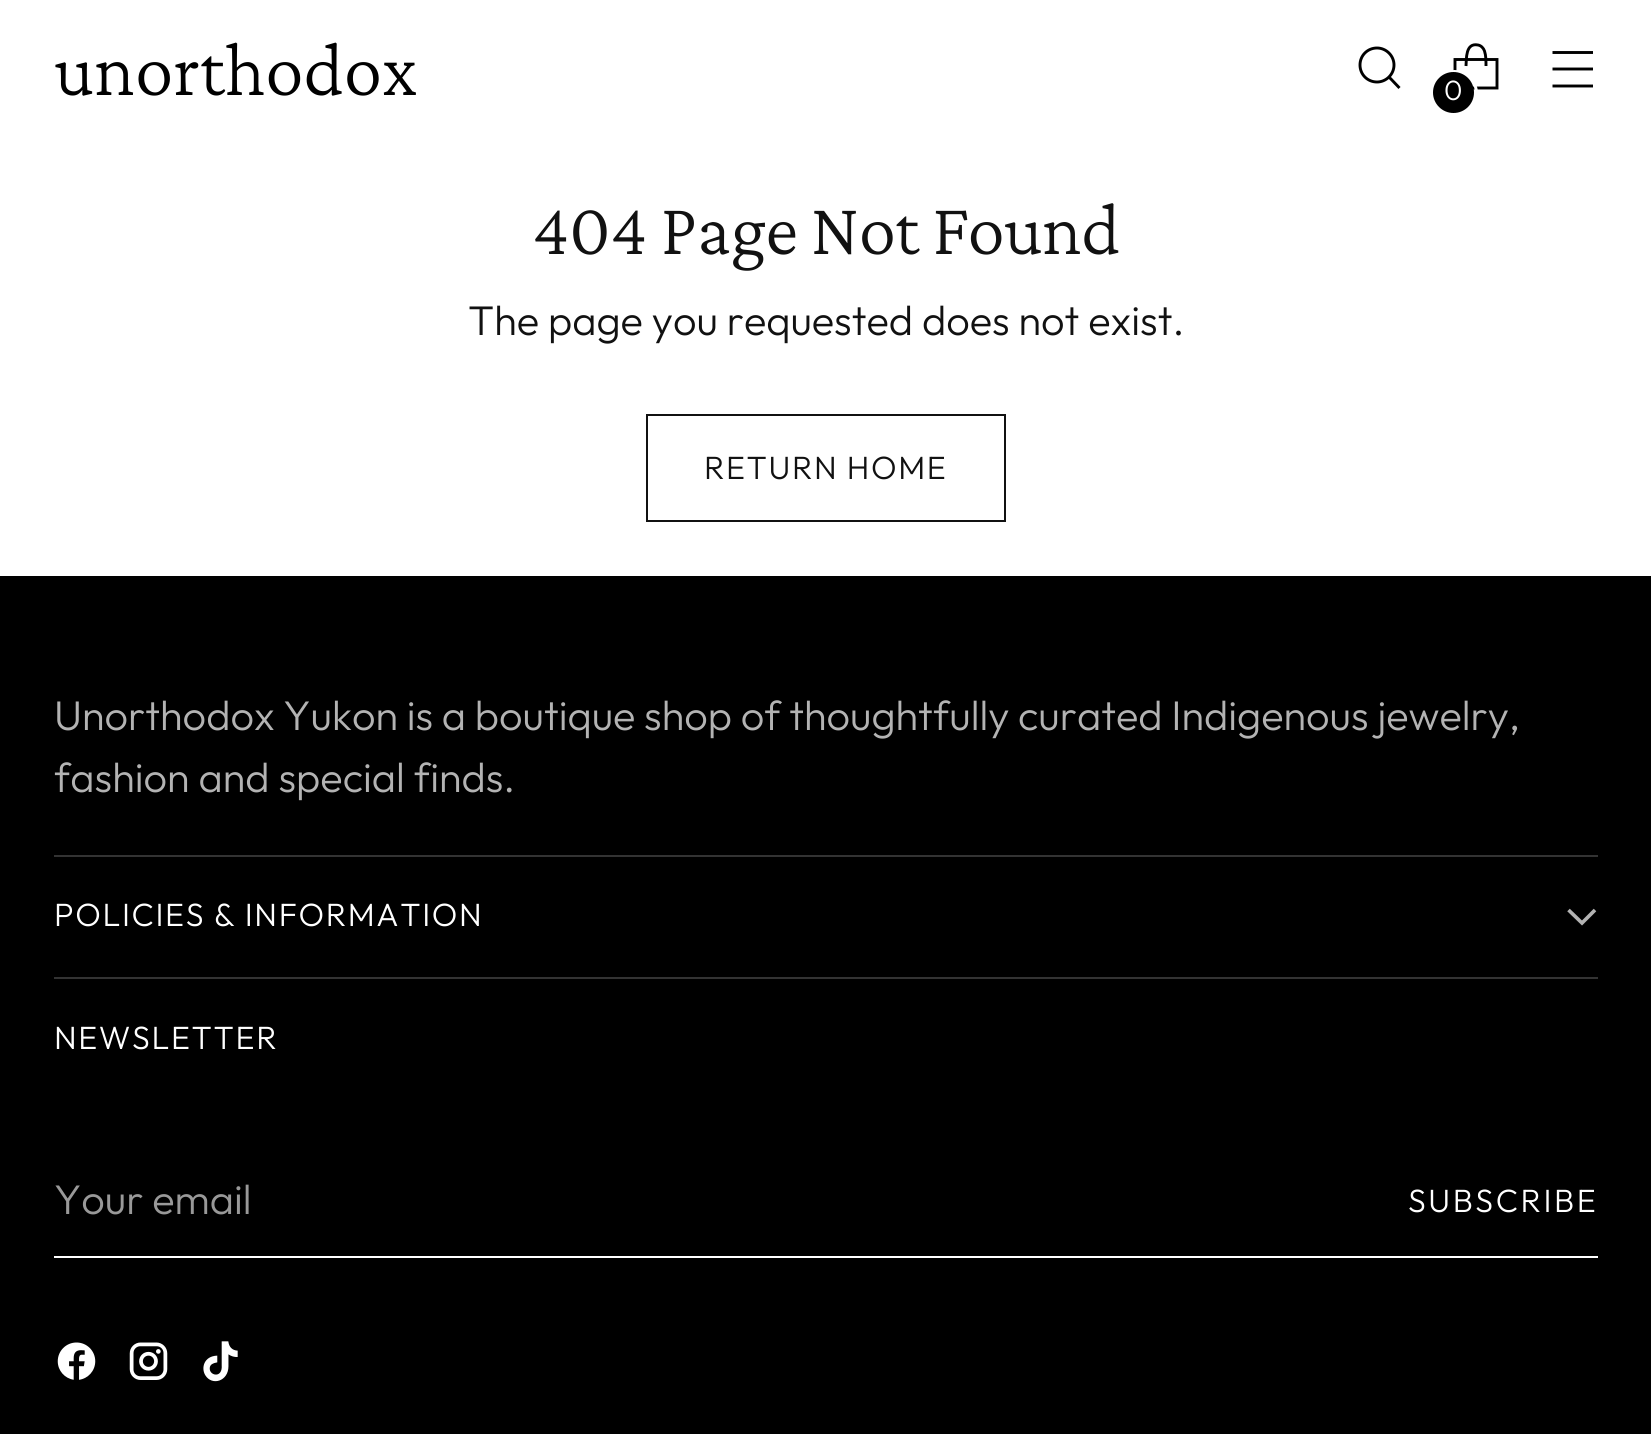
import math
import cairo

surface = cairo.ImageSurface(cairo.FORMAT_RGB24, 1651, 1434)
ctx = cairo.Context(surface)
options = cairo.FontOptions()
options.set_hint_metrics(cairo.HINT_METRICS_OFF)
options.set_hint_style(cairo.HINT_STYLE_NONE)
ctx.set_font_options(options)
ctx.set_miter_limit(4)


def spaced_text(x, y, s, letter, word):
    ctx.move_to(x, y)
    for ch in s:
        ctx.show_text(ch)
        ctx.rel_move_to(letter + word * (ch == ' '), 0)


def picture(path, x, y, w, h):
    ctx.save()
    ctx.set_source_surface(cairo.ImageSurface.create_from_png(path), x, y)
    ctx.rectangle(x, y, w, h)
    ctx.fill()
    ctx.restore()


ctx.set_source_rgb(1, 1, 1)
ctx.paint()
ctx.select_font_face("Crimson Pro Light")
ctx.set_font_size(77.5)
ctx.set_source_rgb(0, 0, 0)
ctx.move_to(54, 95)
ctx.show_text("unorthodox")
ctx.new_path()
ctx.move_to(1377, 82)
ctx.curve_to(1386, 82, 1394, 74.5, 1394, 65)
ctx.curve_to(1394, 55.5, 1386, 48, 1377, 48)
ctx.curve_to(1367.5, 48, 1360, 55.5, 1360, 65)
ctx.curve_to(1360, 74.5, 1367.5, 82, 1377, 82)
ctx.close_path()
ctx.set_line_width(2.9)
ctx.set_line_cap(cairo.LINE_CAP_ROUND)
ctx.stroke()
ctx.new_path()
ctx.move_to(1389, 77)
ctx.line_to(1399.5, 88)
ctx.set_line_cap(cairo.LINE_CAP_BUTT)
ctx.stroke()
ctx.new_path()
ctx.move_to(1552.5, 69)
ctx.line_to(1593, 69)
ctx.move_to(1552.5, 52.5)
ctx.line_to(1593, 52.5)
ctx.move_to(1552.5, 86)
ctx.line_to(1593, 86)
ctx.stroke()
ctx.new_path()
ctx.move_to(1486, 66)
ctx.curve_to(1486, 61, 1486, 55.5, 1484.5, 51)
ctx.curve_to(1483.5, 48, 1481, 45.5, 1478, 45)
ctx.curve_to(1465.5, 42.5, 1466.5, 58.5, 1466, 66)
ctx.set_line_join(cairo.LINE_JOIN_BEVEL)
ctx.stroke()
ctx.new_path()
ctx.move_to(1497, 88)
ctx.line_to(1497, 59.5)
ctx.line_to(1455, 59.5)
ctx.line_to(1455, 88)
ctx.close_path()
ctx.set_line_join(cairo.LINE_JOIN_MITER)
ctx.stroke()
ctx.arc(1454.5, 93.5, 22, 0, 2 * math.pi)
ctx.set_source_rgb(1, 1, 1)
ctx.set_line_width(3)
ctx.stroke()
ctx.set_source_rgb(0, 0, 0)
ctx.arc(1453.5, 92.5, 20.5, 0, 2 * math.pi)
ctx.fill()
ctx.select_font_face("Outfit Light")
ctx.set_font_size(28)
ctx.set_source_rgb(1, 1, 1)
ctx.move_to(1444, 100)
ctx.show_text("0")
ctx.select_font_face("Crimson Pro Light")
ctx.set_font_size(75.25)
ctx.set_source_rgb(0.067, 0.067, 0.067)
spaced_text(532, 254, "404 Page Not Found", -0.75, 0)
ctx.select_font_face("Outfit Light")
ctx.set_font_size(41.45)
ctx.move_to(468, 335)
ctx.show_text("The page you requested does not exist.")
ctx.rectangle(647, 415, 358, 106)
ctx.set_line_width(2)
ctx.stroke()
ctx.set_font_size(32.25)
spaced_text(704, 479, "RETURN HOME", 1.6, 0)
ctx.set_source_rgb(0, 0, 0)
ctx.rectangle(0, 576, 1651, 858)
ctx.fill()
ctx.set_source_rgb(0.2, 0.2, 0.2)
ctx.rectangle(54, 855, 1544, 2)
ctx.fill()
ctx.set_font_size(41.45)
ctx.set_source_rgb(0.702, 0.702, 0.702)
spaced_text(54, 730, "Unorthodox Yukon is a boutique shop of thoughtfully curated Indigenous jewelry,", 0, -0.25)
ctx.move_to(54, 792)
ctx.show_text("fashion and special finds.")
ctx.set_source_rgb(0.2, 0.2, 0.2)
ctx.rectangle(54, 977, 1544, 2)
ctx.fill()
ctx.set_font_size(32.25)
ctx.set_source_rgb(1, 1, 1)
spaced_text(54, 926, "POLICIES & INFORMATION", 1.6, 0)
ctx.new_path()
ctx.move_to(1568.5, 910)
ctx.line_to(1582, 923)
ctx.line_to(1595, 910)
ctx.set_source_rgb(0.702, 0.702, 0.702)
ctx.set_line_width(3.6)
ctx.stroke()
ctx.set_source_rgb(1, 1, 1)
spaced_text(54, 1049, "NEWSLETTER", 1.6, 0)
ctx.rectangle(54, 1256, 1544, 2)
ctx.fill()
ctx.set_font_size(41.45)
ctx.set_source_rgb(0.6, 0.6, 0.6)
ctx.move_to(54, 1214)
ctx.show_text("Your email")
ctx.set_font_size(32.25)
ctx.set_source_rgb(1, 1, 1)
spaced_text(1408, 1212, "SUBSCRIBE", 2.5, 0)
picture("img1.png", 57, 1342, 39, 38)
picture("img2.png", 129, 1342, 39, 38)
picture("img3.png", 203, 1341, 35, 41)
surface.write_to_png("page.png")
